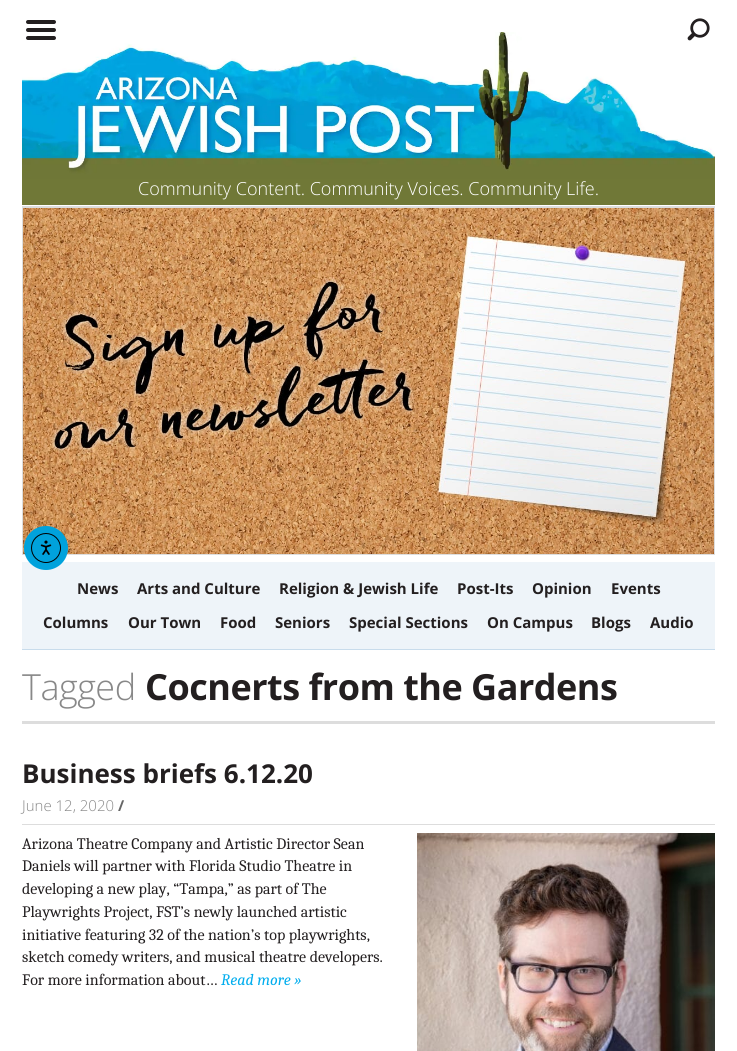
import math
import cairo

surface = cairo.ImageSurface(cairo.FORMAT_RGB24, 737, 1051)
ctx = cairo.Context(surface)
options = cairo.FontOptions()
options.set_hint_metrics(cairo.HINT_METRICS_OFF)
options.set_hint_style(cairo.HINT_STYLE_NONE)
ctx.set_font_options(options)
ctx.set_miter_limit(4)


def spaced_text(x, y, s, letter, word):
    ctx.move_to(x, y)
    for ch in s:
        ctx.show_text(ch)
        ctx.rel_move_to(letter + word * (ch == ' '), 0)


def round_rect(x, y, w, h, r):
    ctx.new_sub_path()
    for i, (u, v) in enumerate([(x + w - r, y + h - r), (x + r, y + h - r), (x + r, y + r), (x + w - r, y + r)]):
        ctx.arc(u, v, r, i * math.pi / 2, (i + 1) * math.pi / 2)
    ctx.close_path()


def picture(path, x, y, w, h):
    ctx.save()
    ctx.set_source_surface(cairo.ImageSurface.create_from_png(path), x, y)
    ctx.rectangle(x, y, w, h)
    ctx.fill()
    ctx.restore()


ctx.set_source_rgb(1, 1, 1)
ctx.paint()
ctx.set_source_rgb(0.137, 0.122, 0.125)
round_rect(26, 20, 30, 4, 2)
ctx.fill()
round_rect(26, 28, 30, 4, 2)
ctx.fill()
picture("img1.png", 22, 32, 693, 147)
round_rect(26, 36, 30, 4, 2)
ctx.fill()
ctx.set_source_rgb(0.867, 0.867, 0.867)
ctx.rectangle(22, 206, 693, 1)
ctx.fill()
ctx.select_font_face("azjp")
ctx.set_font_size(22)
ctx.set_source_rgb(0.137, 0.122, 0.125)
ctx.move_to(687, 39)
ctx.show_text("+")
ctx.set_source_rgb(0.439, 0.471, 0.216)
ctx.rectangle(22, 179, 693, 26)
ctx.fill()
ctx.select_font_face("Open Sans Light")
ctx.set_font_size(18)
ctx.set_source_rgb(1, 1, 1)
ctx.move_to(138, 195)
ctx.show_text("Community Content. Community Voices. Community Life.")
ctx.rectangle(22.5, 207.5, 692, 347)
ctx.set_source_rgb(0.867, 0.867, 0.867)
ctx.set_line_width(1)
ctx.stroke()
picture("img2.png", 23, 208, 691, 346)
ctx.set_source_rgb(0.933, 0.957, 0.976)
ctx.rectangle(22, 562, 693, 87)
ctx.fill()
ctx.set_source_rgb(0.784, 0.863, 0.925)
ctx.rectangle(22, 649, 693, 1)
ctx.fill()
ctx.select_font_face("Open Sans", cairo.FONT_SLANT_NORMAL, cairo.FONT_WEIGHT_BOLD)
ctx.set_font_size(15)
ctx.set_source_rgb(0.137, 0.122, 0.125)
ctx.move_to(77, 594)
ctx.show_text("News")
ctx.move_to(137, 594)
ctx.show_text("Arts and Culture")
ctx.move_to(279, 594)
ctx.show_text("Religion & Jewish Life")
ctx.move_to(457, 594)
ctx.show_text("Post-Its")
ctx.move_to(532, 594)
ctx.show_text("Opinion")
ctx.move_to(611, 594)
ctx.show_text("Events")
ctx.move_to(43, 628)
ctx.show_text("Columns")
ctx.move_to(128, 628)
ctx.show_text("Our Town")
ctx.move_to(220, 628)
ctx.show_text("Food")
ctx.move_to(275, 628)
ctx.show_text("Seniors")
ctx.move_to(349, 628)
ctx.show_text("Special Sections")
ctx.move_to(487, 628)
ctx.show_text("On Campus")
ctx.move_to(591, 628)
ctx.show_text("Blogs")
ctx.move_to(650, 628)
ctx.show_text("Audio")
ctx.set_source_rgb(0.867, 0.867, 0.867)
ctx.rectangle(22, 721, 693, 3)
ctx.fill()
ctx.select_font_face("Open Sans Light")
ctx.set_font_size(36)
ctx.set_source_rgb(0.533, 0.533, 0.533)
spaced_text(22, 700, "Tagged", -0.5, 0)
ctx.select_font_face("Open Sans", cairo.FONT_SLANT_NORMAL, cairo.FONT_WEIGHT_BOLD)
ctx.set_source_rgb(0.137, 0.122, 0.125)
spaced_text(145, 700, "Cocnerts from the Gardens", -0.5, 0)
ctx.set_font_size(26)
ctx.move_to(22, 783)
ctx.show_text("Business briefs 6.12.20")
ctx.set_source_rgb(0.867, 0.867, 0.867)
ctx.rectangle(22, 824, 693, 1)
ctx.fill()
ctx.select_font_face("Open Sans Light")
ctx.set_font_size(15)
ctx.set_source_rgb(0.533, 0.533, 0.533)
ctx.move_to(22, 811)
ctx.show_text("June 12, 2020")
ctx.select_font_face("Open Sans", cairo.FONT_SLANT_NORMAL, cairo.FONT_WEIGHT_BOLD)
ctx.set_source_rgb(0.4, 0.4, 0.4)
ctx.move_to(118, 811)
ctx.show_text("/")
ctx.select_font_face("Caladea")
ctx.set_font_size(16)
ctx.set_source_rgb(0.137, 0.122, 0.125)
ctx.move_to(22, 849)
ctx.show_text("Arizona Theatre Company and Artistic Director Sean")
ctx.move_to(22, 871)
ctx.show_text("Daniels will partner with Florida Studio Theatre in")
ctx.move_to(22, 894)
ctx.show_text("developing a new play, “Tampa,” as part of The")
ctx.move_to(22, 917)
ctx.show_text("Playwrights Project, FST’s newly launched artistic")
ctx.move_to(22, 940)
ctx.show_text("initiative featuring 32 of the nation’s top playwrights,")
ctx.move_to(22, 962)
ctx.show_text("sketch comedy writers, and musical theatre developers.")
ctx.move_to(22, 985)
ctx.show_text("For more information about…")
ctx.select_font_face("Caladea", cairo.FONT_SLANT_ITALIC)
ctx.set_source_rgb(0, 0.678, 0.933)
ctx.move_to(221, 985)
ctx.show_text("Read more »")
picture("img3.png", 417, 833, 298, 218)
ctx.set_source_rgb(0, 0.635, 0.863)
ctx.arc(46, 548, 22, 0, 2 * math.pi)
ctx.fill()
ctx.arc(46, 548, 14.5, 0, 2 * math.pi)
ctx.set_source_rgb(0, 0, 0)
ctx.stroke()
picture("img4.png", 40, 540, 12, 15)
surface.write_to_png("page.png")
